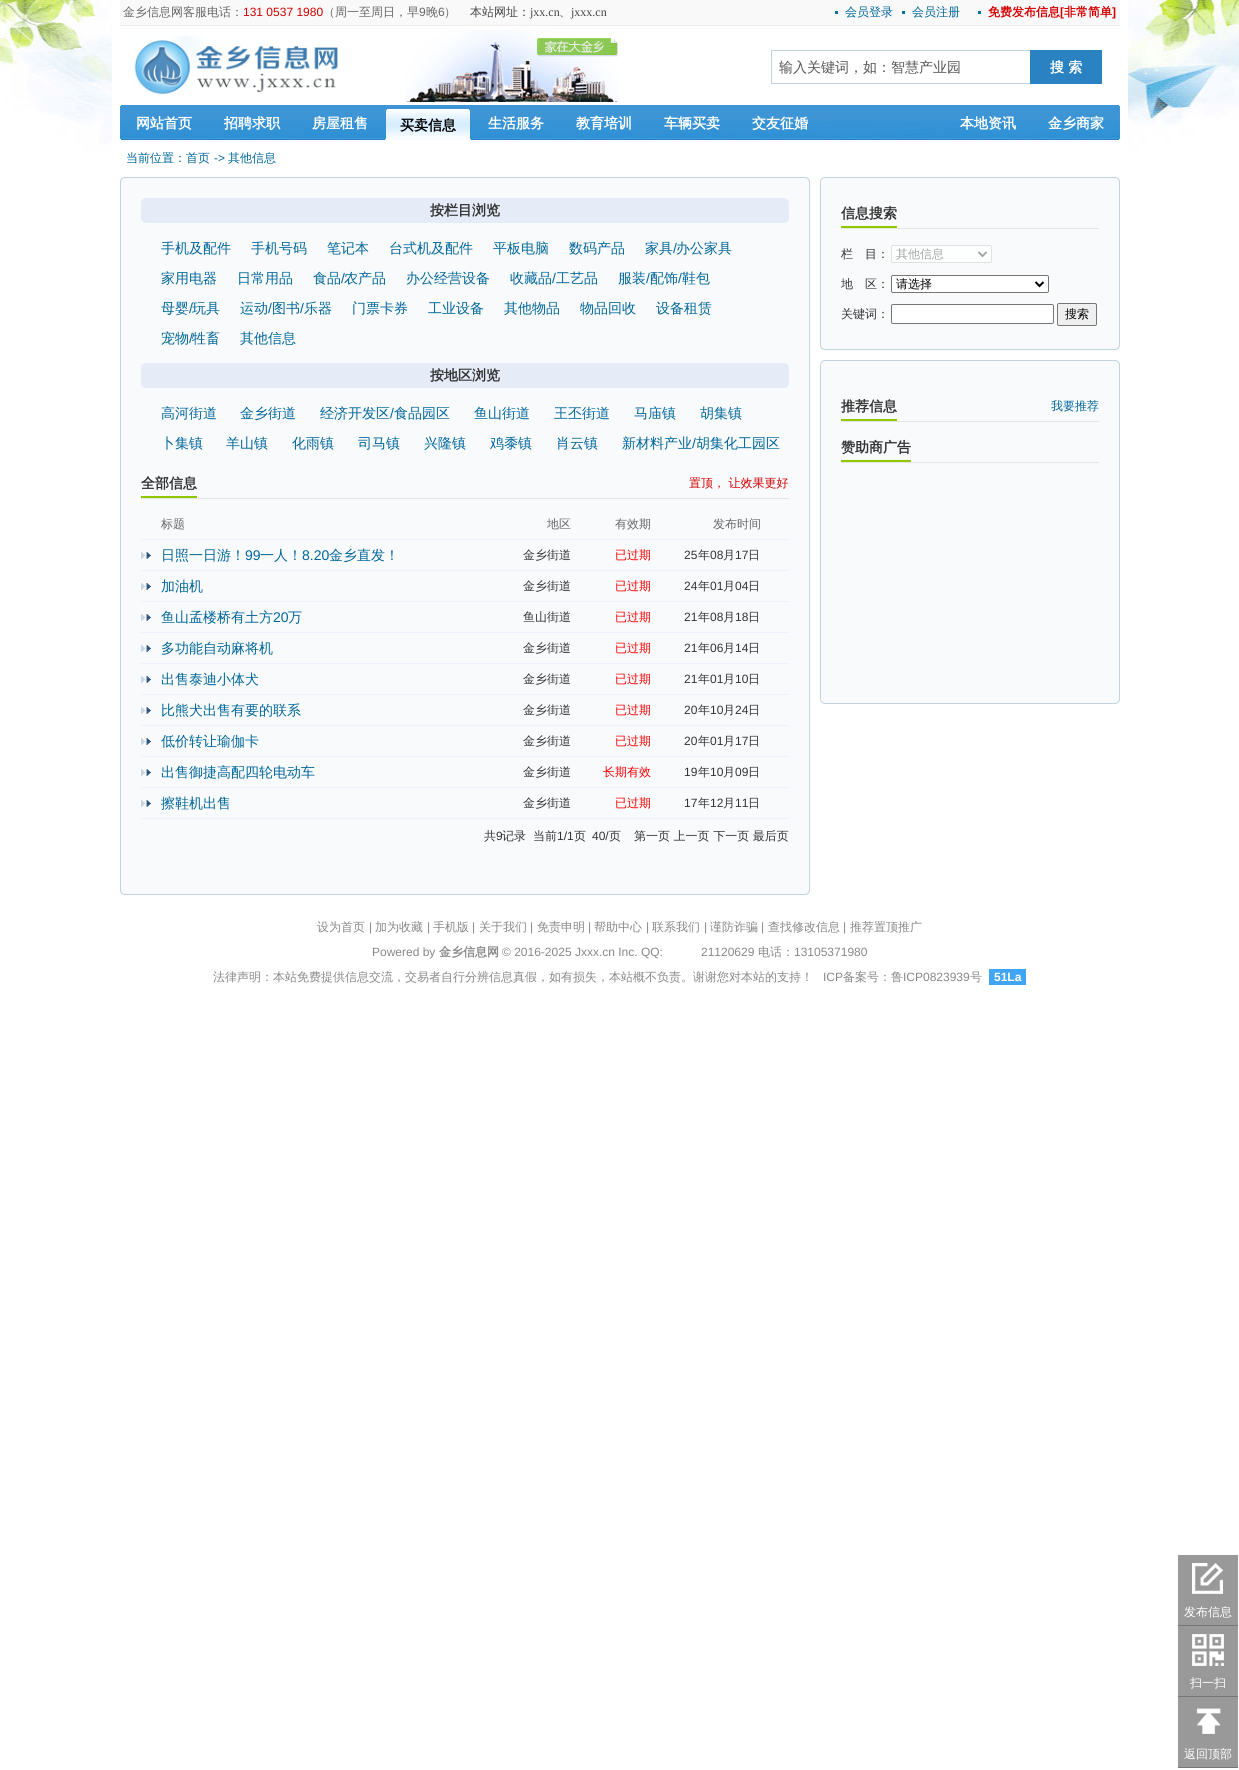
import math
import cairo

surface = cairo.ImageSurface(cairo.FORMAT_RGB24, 1239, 1770)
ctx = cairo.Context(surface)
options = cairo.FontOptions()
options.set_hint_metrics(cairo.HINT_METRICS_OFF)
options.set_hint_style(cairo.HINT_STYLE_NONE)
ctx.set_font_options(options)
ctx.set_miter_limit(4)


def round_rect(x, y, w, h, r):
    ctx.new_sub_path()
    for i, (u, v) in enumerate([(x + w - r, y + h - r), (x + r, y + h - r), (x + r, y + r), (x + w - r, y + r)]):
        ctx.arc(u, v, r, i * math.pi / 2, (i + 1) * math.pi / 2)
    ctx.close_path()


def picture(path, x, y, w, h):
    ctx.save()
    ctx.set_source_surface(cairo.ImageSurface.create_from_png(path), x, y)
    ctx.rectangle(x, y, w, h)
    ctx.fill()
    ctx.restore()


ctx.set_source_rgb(1, 1, 1)
ctx.paint()
picture("img1.png", 0, 0, 1239, 152)
ctx.set_source_rgb(1, 1, 1)
ctx.rectangle(112, 0, 1016, 152)
ctx.fill()
ctx.set_source_rgb(0.973, 0.973, 0.973)
ctx.rectangle(120, 0, 1000, 25)
ctx.fill()
ctx.set_source_rgb(0.933, 0.933, 0.933)
ctx.rectangle(120, 25, 1000, 1)
ctx.fill()
ctx.select_font_face("WenQuanYi Zen Hei Medium")
ctx.set_font_size(12)
ctx.set_source_rgb(0.4, 0.4, 0.4)
ctx.move_to(123, 16)
ctx.show_text("金乡信息网客服电话：")
ctx.select_font_face("Liberation Sans")
ctx.set_source_rgb(0.831, 0, 0)
ctx.move_to(243, 16)
ctx.show_text("131 0537 1980")
ctx.select_font_face("WenQuanYi Zen Hei Medium")
ctx.set_source_rgb(0.4, 0.4, 0.4)
ctx.move_to(323, 16)
ctx.show_text("（周一至周日，早")
ctx.select_font_face("Liberation Sans")
ctx.move_to(419, 16)
ctx.show_text("9")
ctx.select_font_face("WenQuanYi Zen Hei Medium")
ctx.move_to(426, 16)
ctx.show_text("晚")
ctx.select_font_face("Liberation Sans")
ctx.move_to(438, 16)
ctx.show_text("6")
ctx.select_font_face("WenQuanYi Zen Hei Medium")
ctx.move_to(444, 16)
ctx.show_text("）")
ctx.set_source_rgb(0.267, 0.267, 0.267)
ctx.move_to(470, 16)
ctx.show_text("本站网址：")
ctx.select_font_face("Liberation Serif")
ctx.move_to(530, 16)
ctx.show_text("jxx.cn")
ctx.select_font_face("WenQuanYi Zen Hei Medium")
ctx.move_to(559, 16)
ctx.show_text("、")
ctx.select_font_face("Liberation Serif")
ctx.move_to(571, 16)
ctx.show_text("jxxx.cn")
ctx.set_source_rgb(0.035, 0.439, 0.6)
ctx.rectangle(835, 11, 3, 3)
ctx.fill()
ctx.select_font_face("WenQuanYi Zen Hei Medium")
ctx.set_source_rgb(0, 0.4, 0.6)
ctx.move_to(845, 16)
ctx.show_text("会员登录")
ctx.set_source_rgb(0.035, 0.439, 0.6)
ctx.rectangle(902, 11, 3, 3)
ctx.fill()
ctx.set_source_rgb(0, 0.4, 0.6)
ctx.move_to(912, 16)
ctx.show_text("会员注册")
ctx.set_source_rgb(0.035, 0.439, 0.6)
ctx.rectangle(978, 11, 3, 3)
ctx.fill()
ctx.select_font_face("WenQuanYi Zen Hei", cairo.FONT_SLANT_NORMAL, cairo.FONT_WEIGHT_BOLD)
ctx.set_source_rgb(0.831, 0, 0)
ctx.move_to(988, 16)
ctx.show_text("免费发布信息")
ctx.select_font_face("Liberation Sans", cairo.FONT_SLANT_NORMAL, cairo.FONT_WEIGHT_BOLD)
ctx.move_to(1060, 16)
ctx.show_text("[")
ctx.select_font_face("WenQuanYi Zen Hei", cairo.FONT_SLANT_NORMAL, cairo.FONT_WEIGHT_BOLD)
ctx.move_to(1064, 16)
ctx.show_text("非常简单")
ctx.select_font_face("Liberation Sans", cairo.FONT_SLANT_NORMAL, cairo.FONT_WEIGHT_BOLD)
ctx.move_to(1112, 16)
ctx.show_text("]")
picture("img2.png", 134, 35, 204, 60)
picture("img3.png", 405, 30, 215, 72)
ctx.set_source_rgb(0.761, 0.831, 0.871)
ctx.rectangle(771, 50, 259, 1)
ctx.fill()
ctx.rectangle(771, 83, 259, 1)
ctx.fill()
ctx.rectangle(771, 50, 1, 34)
ctx.fill()
ctx.select_font_face("WenQuanYi Zen Hei Medium")
ctx.set_font_size(14)
ctx.set_source_rgb(0.333, 0.333, 0.333)
ctx.move_to(779, 72)
ctx.show_text("输入关键词，如：智慧产业园")
ctx.set_source_rgb(0.165, 0.51, 0.761)
ctx.rectangle(1030, 50, 72, 34)
ctx.fill()
ctx.select_font_face("WenQuanYi Zen Hei", cairo.FONT_SLANT_NORMAL, cairo.FONT_WEIGHT_BOLD)
ctx.set_source_rgb(1, 1, 1)
ctx.move_to(1050, 72)
ctx.show_text("搜 索")
picture("img4.png", 120, 105, 1000, 35)
ctx.move_to(136, 128)
ctx.show_text("网站首页")
ctx.move_to(224, 128)
ctx.show_text("招聘求职")
ctx.move_to(312, 128)
ctx.show_text("房屋租售")
picture("img5.png", 384, 109, 88, 31)
ctx.set_source_rgb(0, 0, 0)
ctx.move_to(400, 130)
ctx.show_text("买卖信息")
ctx.set_source_rgb(1, 1, 1)
ctx.move_to(488, 128)
ctx.show_text("生活服务")
ctx.move_to(576, 128)
ctx.show_text("教育培训")
ctx.move_to(664, 128)
ctx.show_text("车辆买卖")
ctx.move_to(752, 128)
ctx.show_text("交友征婚")
ctx.move_to(960, 128)
ctx.show_text("本地资讯")
ctx.move_to(1048, 128)
ctx.show_text("金乡商家")
ctx.select_font_face("WenQuanYi Zen Hei Medium")
ctx.set_font_size(12)
ctx.set_source_rgb(0, 0.4, 0.6)
ctx.move_to(126, 162)
ctx.show_text("当前位置：首页")
ctx.select_font_face("Liberation Sans")
ctx.move_to(214, 162)
ctx.show_text("->")
ctx.select_font_face("WenQuanYi Zen Hei Medium")
ctx.move_to(228, 162)
ctx.show_text("其他信息")
ctx.set_source_rgb(0.976, 0.98, 0.988)
round_rect(120.5, 177.5, 689, 717, 4.5)
ctx.fill_preserve()
ctx.set_source_rgb(0.761, 0.831, 0.871)
ctx.set_line_width(1)
ctx.stroke()
ctx.set_source_rgb(0.898, 0.922, 0.969)
round_rect(141, 198, 648, 25, 5)
ctx.fill()
ctx.select_font_face("WenQuanYi Zen Hei", cairo.FONT_SLANT_NORMAL, cairo.FONT_WEIGHT_BOLD)
ctx.set_font_size(14)
ctx.set_source_rgb(0.2, 0.2, 0.2)
ctx.move_to(430, 215)
ctx.show_text("按栏目浏览")
ctx.select_font_face("WenQuanYi Zen Hei Medium")
ctx.set_source_rgb(0, 0.4, 0.6)
ctx.move_to(161, 253)
ctx.show_text("手机及配件")
ctx.move_to(251, 253)
ctx.show_text("手机号码")
ctx.move_to(327, 253)
ctx.show_text("笔记本")
ctx.move_to(389, 253)
ctx.show_text("台式机及配件")
ctx.move_to(493, 253)
ctx.show_text("平板电脑")
ctx.move_to(569, 253)
ctx.show_text("数码产品")
ctx.move_to(645, 253)
ctx.show_text("家具")
ctx.select_font_face("Liberation Sans")
ctx.move_to(673, 253)
ctx.show_text("/")
ctx.select_font_face("WenQuanYi Zen Hei Medium")
ctx.move_to(676, 253)
ctx.show_text("办公家具")
ctx.move_to(161, 283)
ctx.show_text("家用电器")
ctx.move_to(237, 283)
ctx.show_text("日常用品")
ctx.move_to(313, 283)
ctx.show_text("食品")
ctx.select_font_face("Liberation Sans")
ctx.move_to(341, 283)
ctx.show_text("/")
ctx.select_font_face("WenQuanYi Zen Hei Medium")
ctx.move_to(344, 283)
ctx.show_text("农产品")
ctx.move_to(406, 283)
ctx.show_text("办公经营设备")
ctx.move_to(510, 283)
ctx.show_text("收藏品")
ctx.select_font_face("Liberation Sans")
ctx.move_to(552, 283)
ctx.show_text("/")
ctx.select_font_face("WenQuanYi Zen Hei Medium")
ctx.move_to(556, 283)
ctx.show_text("工艺品")
ctx.move_to(618, 283)
ctx.show_text("服装")
ctx.select_font_face("Liberation Sans")
ctx.move_to(646, 283)
ctx.show_text("/")
ctx.select_font_face("WenQuanYi Zen Hei Medium")
ctx.move_to(650, 283)
ctx.show_text("配饰")
ctx.select_font_face("Liberation Sans")
ctx.move_to(678, 283)
ctx.show_text("/")
ctx.select_font_face("WenQuanYi Zen Hei Medium")
ctx.move_to(682, 283)
ctx.show_text("鞋包")
ctx.move_to(161, 313)
ctx.show_text("母婴")
ctx.select_font_face("Liberation Sans")
ctx.move_to(189, 313)
ctx.show_text("/")
ctx.select_font_face("WenQuanYi Zen Hei Medium")
ctx.move_to(192, 313)
ctx.show_text("玩具")
ctx.move_to(240, 313)
ctx.show_text("运动")
ctx.select_font_face("Liberation Sans")
ctx.move_to(268, 313)
ctx.show_text("/")
ctx.select_font_face("WenQuanYi Zen Hei Medium")
ctx.move_to(272, 313)
ctx.show_text("图书")
ctx.select_font_face("Liberation Sans")
ctx.move_to(300, 313)
ctx.show_text("/")
ctx.select_font_face("WenQuanYi Zen Hei Medium")
ctx.move_to(304, 313)
ctx.show_text("乐器")
ctx.move_to(352, 313)
ctx.show_text("门票卡券")
ctx.move_to(428, 313)
ctx.show_text("工业设备")
ctx.move_to(504, 313)
ctx.show_text("其他物品")
ctx.move_to(580, 313)
ctx.show_text("物品回收")
ctx.move_to(656, 313)
ctx.show_text("设备租赁")
ctx.move_to(161, 343)
ctx.show_text("宠物")
ctx.select_font_face("Liberation Sans")
ctx.move_to(189, 343)
ctx.show_text("/")
ctx.select_font_face("WenQuanYi Zen Hei Medium")
ctx.move_to(192, 343)
ctx.show_text("牲畜")
ctx.move_to(240, 343)
ctx.show_text("其他信息")
ctx.set_source_rgb(0.898, 0.922, 0.969)
round_rect(141, 363, 648, 25, 5)
ctx.fill()
ctx.select_font_face("WenQuanYi Zen Hei", cairo.FONT_SLANT_NORMAL, cairo.FONT_WEIGHT_BOLD)
ctx.set_source_rgb(0.2, 0.2, 0.2)
ctx.move_to(430, 380)
ctx.show_text("按地区浏览")
ctx.select_font_face("WenQuanYi Zen Hei Medium")
ctx.set_source_rgb(0, 0.4, 0.6)
ctx.move_to(161, 418)
ctx.show_text("高河街道")
ctx.move_to(240, 418)
ctx.show_text("金乡街道")
ctx.move_to(320, 418)
ctx.show_text("经济开发区")
ctx.select_font_face("Liberation Sans")
ctx.move_to(390, 418)
ctx.show_text("/")
ctx.select_font_face("WenQuanYi Zen Hei Medium")
ctx.move_to(394, 418)
ctx.show_text("食品园区")
ctx.move_to(474, 418)
ctx.show_text("鱼山街道")
ctx.move_to(554, 418)
ctx.show_text("王丕街道")
ctx.move_to(634, 418)
ctx.show_text("马庙镇")
ctx.move_to(700, 418)
ctx.show_text("胡集镇")
ctx.move_to(161, 448)
ctx.show_text("卜集镇")
ctx.move_to(226, 448)
ctx.show_text("羊山镇")
ctx.move_to(292, 448)
ctx.show_text("化雨镇")
ctx.move_to(358, 448)
ctx.show_text("司马镇")
ctx.move_to(424, 448)
ctx.show_text("兴隆镇")
ctx.move_to(490, 448)
ctx.show_text("鸡黍镇")
ctx.move_to(556, 448)
ctx.show_text("肖云镇")
ctx.move_to(622, 448)
ctx.show_text("新材料产业")
ctx.select_font_face("Liberation Sans")
ctx.move_to(692, 448)
ctx.show_text("/")
ctx.select_font_face("WenQuanYi Zen Hei Medium")
ctx.move_to(696, 448)
ctx.show_text("胡集化工园区")
ctx.set_source_rgb(0.902, 0.898, 0.898)
ctx.rectangle(141, 498, 648, 1)
ctx.fill()
ctx.set_source_rgb(0.565, 0.788, 0)
ctx.rectangle(141, 496, 56, 2)
ctx.fill()
ctx.select_font_face("WenQuanYi Zen Hei", cairo.FONT_SLANT_NORMAL, cairo.FONT_WEIGHT_BOLD)
ctx.set_source_rgb(0.2, 0.2, 0.2)
ctx.move_to(141, 488)
ctx.show_text("全部信息")
ctx.select_font_face("WenQuanYi Zen Hei Medium")
ctx.set_font_size(12)
ctx.set_source_rgb(0.831, 0, 0)
ctx.move_to(689, 487)
ctx.show_text("置顶， 让效果更好")
ctx.set_source_rgb(0.922, 0.949, 1)
ctx.rectangle(141, 539, 648, 1)
ctx.fill()
ctx.set_source_rgb(0.4, 0.4, 0.4)
ctx.move_to(161, 528)
ctx.show_text("标题")
ctx.move_to(547, 528)
ctx.show_text("地区")
ctx.move_to(615, 528)
ctx.show_text("有效期")
ctx.move_to(713, 528)
ctx.show_text("发布时间")
picture("img6.png", 141, 552, 10, 7)
ctx.set_source_rgb(0.922, 0.949, 1)
ctx.rectangle(141, 570, 648, 1)
ctx.fill()
ctx.set_font_size(14)
ctx.set_source_rgb(0, 0.4, 0.6)
ctx.move_to(161, 560)
ctx.show_text("日照一日游！")
ctx.select_font_face("Liberation Sans")
ctx.move_to(245, 560)
ctx.show_text("99")
ctx.select_font_face("WenQuanYi Zen Hei Medium")
ctx.move_to(260, 560)
ctx.show_text("一人！")
ctx.select_font_face("Liberation Sans")
ctx.move_to(302, 560)
ctx.show_text("8.20")
ctx.select_font_face("WenQuanYi Zen Hei Medium")
ctx.move_to(329, 560)
ctx.show_text("金乡直发！")
ctx.set_font_size(12)
ctx.set_source_rgb(0.2, 0.2, 0.2)
ctx.move_to(523, 559)
ctx.show_text("金乡街道")
ctx.set_source_rgb(1, 0, 0)
ctx.move_to(615, 559)
ctx.show_text("已过期")
ctx.select_font_face("Liberation Sans")
ctx.set_source_rgb(0.2, 0.2, 0.2)
ctx.move_to(684, 559)
ctx.show_text("25")
ctx.select_font_face("WenQuanYi Zen Hei Medium")
ctx.move_to(698, 559)
ctx.show_text("年")
ctx.select_font_face("Liberation Sans")
ctx.move_to(710, 559)
ctx.show_text("08")
ctx.select_font_face("WenQuanYi Zen Hei Medium")
ctx.move_to(723, 559)
ctx.show_text("月")
ctx.select_font_face("Liberation Sans")
ctx.move_to(735, 559)
ctx.show_text("17")
ctx.select_font_face("WenQuanYi Zen Hei Medium")
ctx.move_to(748, 559)
ctx.show_text("日")
picture("img6.png", 141, 583, 10, 7)
ctx.set_source_rgb(0.922, 0.949, 1)
ctx.rectangle(141, 601, 648, 1)
ctx.fill()
ctx.set_font_size(14)
ctx.set_source_rgb(0, 0.4, 0.6)
ctx.move_to(161, 591)
ctx.show_text("加油机")
ctx.set_font_size(12)
ctx.set_source_rgb(0.2, 0.2, 0.2)
ctx.move_to(523, 590)
ctx.show_text("金乡街道")
ctx.set_source_rgb(1, 0, 0)
ctx.move_to(615, 590)
ctx.show_text("已过期")
ctx.select_font_face("Liberation Sans")
ctx.set_source_rgb(0.2, 0.2, 0.2)
ctx.move_to(684, 590)
ctx.show_text("24")
ctx.select_font_face("WenQuanYi Zen Hei Medium")
ctx.move_to(698, 590)
ctx.show_text("年")
ctx.select_font_face("Liberation Sans")
ctx.move_to(710, 590)
ctx.show_text("01")
ctx.select_font_face("WenQuanYi Zen Hei Medium")
ctx.move_to(723, 590)
ctx.show_text("月")
ctx.select_font_face("Liberation Sans")
ctx.move_to(735, 590)
ctx.show_text("04")
ctx.select_font_face("WenQuanYi Zen Hei Medium")
ctx.move_to(748, 590)
ctx.show_text("日")
picture("img6.png", 141, 614, 10, 7)
ctx.set_source_rgb(0.922, 0.949, 1)
ctx.rectangle(141, 632, 648, 1)
ctx.fill()
ctx.set_font_size(14)
ctx.set_source_rgb(0, 0.4, 0.6)
ctx.move_to(161, 622)
ctx.show_text("鱼山孟楼桥有土方")
ctx.select_font_face("Liberation Sans")
ctx.move_to(273, 622)
ctx.show_text("20")
ctx.select_font_face("WenQuanYi Zen Hei Medium")
ctx.move_to(288, 622)
ctx.show_text("万")
ctx.set_font_size(12)
ctx.set_source_rgb(0.2, 0.2, 0.2)
ctx.move_to(523, 621)
ctx.show_text("鱼山街道")
ctx.set_source_rgb(1, 0, 0)
ctx.move_to(615, 621)
ctx.show_text("已过期")
ctx.select_font_face("Liberation Sans")
ctx.set_source_rgb(0.2, 0.2, 0.2)
ctx.move_to(684, 621)
ctx.show_text("21")
ctx.select_font_face("WenQuanYi Zen Hei Medium")
ctx.move_to(698, 621)
ctx.show_text("年")
ctx.select_font_face("Liberation Sans")
ctx.move_to(710, 621)
ctx.show_text("08")
ctx.select_font_face("WenQuanYi Zen Hei Medium")
ctx.move_to(723, 621)
ctx.show_text("月")
ctx.select_font_face("Liberation Sans")
ctx.move_to(735, 621)
ctx.show_text("18")
ctx.select_font_face("WenQuanYi Zen Hei Medium")
ctx.move_to(748, 621)
ctx.show_text("日")
picture("img6.png", 141, 645, 10, 7)
ctx.set_source_rgb(0.922, 0.949, 1)
ctx.rectangle(141, 663, 648, 1)
ctx.fill()
ctx.set_font_size(14)
ctx.set_source_rgb(0, 0.4, 0.6)
ctx.move_to(161, 653)
ctx.show_text("多功能自动麻将机")
ctx.set_font_size(12)
ctx.set_source_rgb(0.2, 0.2, 0.2)
ctx.move_to(523, 652)
ctx.show_text("金乡街道")
ctx.set_source_rgb(1, 0, 0)
ctx.move_to(615, 652)
ctx.show_text("已过期")
ctx.select_font_face("Liberation Sans")
ctx.set_source_rgb(0.2, 0.2, 0.2)
ctx.move_to(684, 652)
ctx.show_text("21")
ctx.select_font_face("WenQuanYi Zen Hei Medium")
ctx.move_to(698, 652)
ctx.show_text("年")
ctx.select_font_face("Liberation Sans")
ctx.move_to(710, 652)
ctx.show_text("06")
ctx.select_font_face("WenQuanYi Zen Hei Medium")
ctx.move_to(723, 652)
ctx.show_text("月")
ctx.select_font_face("Liberation Sans")
ctx.move_to(735, 652)
ctx.show_text("14")
ctx.select_font_face("WenQuanYi Zen Hei Medium")
ctx.move_to(748, 652)
ctx.show_text("日")
picture("img6.png", 141, 676, 10, 7)
ctx.set_source_rgb(0.922, 0.949, 1)
ctx.rectangle(141, 694, 648, 1)
ctx.fill()
ctx.set_font_size(14)
ctx.set_source_rgb(0, 0.4, 0.6)
ctx.move_to(161, 684)
ctx.show_text("出售泰迪小体犬")
ctx.set_font_size(12)
ctx.set_source_rgb(0.2, 0.2, 0.2)
ctx.move_to(523, 683)
ctx.show_text("金乡街道")
ctx.set_source_rgb(1, 0, 0)
ctx.move_to(615, 683)
ctx.show_text("已过期")
ctx.select_font_face("Liberation Sans")
ctx.set_source_rgb(0.2, 0.2, 0.2)
ctx.move_to(684, 683)
ctx.show_text("21")
ctx.select_font_face("WenQuanYi Zen Hei Medium")
ctx.move_to(698, 683)
ctx.show_text("年")
ctx.select_font_face("Liberation Sans")
ctx.move_to(710, 683)
ctx.show_text("01")
ctx.select_font_face("WenQuanYi Zen Hei Medium")
ctx.move_to(723, 683)
ctx.show_text("月")
ctx.select_font_face("Liberation Sans")
ctx.move_to(735, 683)
ctx.show_text("10")
ctx.select_font_face("WenQuanYi Zen Hei Medium")
ctx.move_to(748, 683)
ctx.show_text("日")
picture("img6.png", 141, 707, 10, 7)
ctx.set_source_rgb(0.922, 0.949, 1)
ctx.rectangle(141, 725, 648, 1)
ctx.fill()
ctx.set_font_size(14)
ctx.set_source_rgb(0, 0.4, 0.6)
ctx.move_to(161, 715)
ctx.show_text("比熊犬出售有要的联系")
ctx.set_font_size(12)
ctx.set_source_rgb(0.2, 0.2, 0.2)
ctx.move_to(523, 714)
ctx.show_text("金乡街道")
ctx.set_source_rgb(1, 0, 0)
ctx.move_to(615, 714)
ctx.show_text("已过期")
ctx.select_font_face("Liberation Sans")
ctx.set_source_rgb(0.2, 0.2, 0.2)
ctx.move_to(684, 714)
ctx.show_text("20")
ctx.select_font_face("WenQuanYi Zen Hei Medium")
ctx.move_to(698, 714)
ctx.show_text("年")
ctx.select_font_face("Liberation Sans")
ctx.move_to(710, 714)
ctx.show_text("10")
ctx.select_font_face("WenQuanYi Zen Hei Medium")
ctx.move_to(723, 714)
ctx.show_text("月")
ctx.select_font_face("Liberation Sans")
ctx.move_to(735, 714)
ctx.show_text("24")
ctx.select_font_face("WenQuanYi Zen Hei Medium")
ctx.move_to(748, 714)
ctx.show_text("日")
picture("img6.png", 141, 738, 10, 7)
ctx.set_source_rgb(0.922, 0.949, 1)
ctx.rectangle(141, 756, 648, 1)
ctx.fill()
ctx.set_font_size(14)
ctx.set_source_rgb(0, 0.4, 0.6)
ctx.move_to(161, 746)
ctx.show_text("低价转让瑜伽卡")
ctx.set_font_size(12)
ctx.set_source_rgb(0.2, 0.2, 0.2)
ctx.move_to(523, 745)
ctx.show_text("金乡街道")
ctx.set_source_rgb(1, 0, 0)
ctx.move_to(615, 745)
ctx.show_text("已过期")
ctx.select_font_face("Liberation Sans")
ctx.set_source_rgb(0.2, 0.2, 0.2)
ctx.move_to(684, 745)
ctx.show_text("20")
ctx.select_font_face("WenQuanYi Zen Hei Medium")
ctx.move_to(698, 745)
ctx.show_text("年")
ctx.select_font_face("Liberation Sans")
ctx.move_to(710, 745)
ctx.show_text("01")
ctx.select_font_face("WenQuanYi Zen Hei Medium")
ctx.move_to(723, 745)
ctx.show_text("月")
ctx.select_font_face("Liberation Sans")
ctx.move_to(735, 745)
ctx.show_text("17")
ctx.select_font_face("WenQuanYi Zen Hei Medium")
ctx.move_to(748, 745)
ctx.show_text("日")
picture("img6.png", 141, 769, 10, 7)
ctx.set_source_rgb(0.922, 0.949, 1)
ctx.rectangle(141, 787, 648, 1)
ctx.fill()
ctx.set_font_size(14)
ctx.set_source_rgb(0, 0.4, 0.6)
ctx.move_to(161, 777)
ctx.show_text("出售御捷高配四轮电动车")
ctx.set_font_size(12)
ctx.set_source_rgb(0.2, 0.2, 0.2)
ctx.move_to(523, 776)
ctx.show_text("金乡街道")
ctx.set_source_rgb(1, 0, 0)
ctx.move_to(603, 776)
ctx.show_text("长期有效")
ctx.select_font_face("Liberation Sans")
ctx.set_source_rgb(0.2, 0.2, 0.2)
ctx.move_to(684, 776)
ctx.show_text("19")
ctx.select_font_face("WenQuanYi Zen Hei Medium")
ctx.move_to(698, 776)
ctx.show_text("年")
ctx.select_font_face("Liberation Sans")
ctx.move_to(710, 776)
ctx.show_text("10")
ctx.select_font_face("WenQuanYi Zen Hei Medium")
ctx.move_to(723, 776)
ctx.show_text("月")
ctx.select_font_face("Liberation Sans")
ctx.move_to(735, 776)
ctx.show_text("09")
ctx.select_font_face("WenQuanYi Zen Hei Medium")
ctx.move_to(748, 776)
ctx.show_text("日")
picture("img6.png", 141, 800, 10, 7)
ctx.set_source_rgb(0.922, 0.949, 1)
ctx.rectangle(141, 818, 648, 1)
ctx.fill()
ctx.set_font_size(14)
ctx.set_source_rgb(0, 0.4, 0.6)
ctx.move_to(161, 808)
ctx.show_text("擦鞋机出售")
ctx.set_font_size(12)
ctx.set_source_rgb(0.2, 0.2, 0.2)
ctx.move_to(523, 807)
ctx.show_text("金乡街道")
ctx.set_source_rgb(1, 0, 0)
ctx.move_to(615, 807)
ctx.show_text("已过期")
ctx.select_font_face("Liberation Sans")
ctx.set_source_rgb(0.2, 0.2, 0.2)
ctx.move_to(684, 807)
ctx.show_text("17")
ctx.select_font_face("WenQuanYi Zen Hei Medium")
ctx.move_to(698, 807)
ctx.show_text("年")
ctx.select_font_face("Liberation Sans")
ctx.move_to(710, 807)
ctx.show_text("12")
ctx.select_font_face("WenQuanYi Zen Hei Medium")
ctx.move_to(723, 807)
ctx.show_text("月")
ctx.select_font_face("Liberation Sans")
ctx.move_to(735, 807)
ctx.show_text("11")
ctx.select_font_face("WenQuanYi Zen Hei Medium")
ctx.move_to(748, 807)
ctx.show_text("日")
ctx.move_to(484, 840)
ctx.show_text("共")
ctx.select_font_face("Liberation Sans")
ctx.move_to(496, 840)
ctx.show_text("9")
ctx.select_font_face("WenQuanYi Zen Hei Medium")
ctx.move_to(502, 840)
ctx.show_text("记录")
ctx.move_to(533, 840)
ctx.show_text("当前")
ctx.select_font_face("Liberation Sans")
ctx.move_to(557, 840)
ctx.show_text("1/1")
ctx.select_font_face("WenQuanYi Zen Hei Medium")
ctx.move_to(574, 840)
ctx.show_text("页")
ctx.select_font_face("Liberation Sans")
ctx.move_to(592, 840)
ctx.show_text("40/")
ctx.select_font_face("WenQuanYi Zen Hei Medium")
ctx.move_to(609, 840)
ctx.show_text("页")
ctx.move_to(634, 840)
ctx.show_text("第一页 上一页 下一页 最后页")
ctx.set_source_rgb(0.976, 0.98, 0.988)
round_rect(820.5, 177.5, 299, 172, 4.5)
ctx.fill_preserve()
ctx.set_source_rgb(0.761, 0.831, 0.871)
ctx.stroke()
ctx.set_source_rgb(0.902, 0.898, 0.898)
ctx.rectangle(841, 228, 258, 1)
ctx.fill()
ctx.set_source_rgb(0.565, 0.788, 0)
ctx.rectangle(841, 226, 56, 2)
ctx.fill()
ctx.select_font_face("WenQuanYi Zen Hei", cairo.FONT_SLANT_NORMAL, cairo.FONT_WEIGHT_BOLD)
ctx.set_font_size(14)
ctx.set_source_rgb(0.2, 0.2, 0.2)
ctx.move_to(841, 218)
ctx.show_text("信息搜索")
ctx.select_font_face("WenQuanYi Zen Hei Medium")
ctx.set_font_size(12)
ctx.move_to(841, 258)
ctx.show_text("栏　目：")
ctx.set_source_rgb(0.992, 0.996, 0.996)
round_rect(891.5, 245.5, 100, 17, 1.5)
ctx.fill_preserve()
ctx.set_source_rgb(0.878, 0.882, 0.882)
ctx.stroke()
ctx.new_path()
ctx.move_to(978.5, 252)
ctx.line_to(982.5, 256)
ctx.line_to(986.5, 252)
ctx.set_source_rgb(0.643, 0.647, 0.647)
ctx.set_line_width(2)
ctx.stroke()
ctx.move_to(896, 258)
ctx.show_text("其他信息")
ctx.save()
ctx.rectangle(841, 269, 258, 30)
ctx.clip()
ctx.set_source_rgb(0.2, 0.2, 0.2)
ctx.move_to(841, 288)
ctx.show_text("地　区：")
ctx.restore()
ctx.set_source_rgb(1, 1, 1)
round_rect(891.5, 275.5, 157, 17, 1.5)
ctx.fill_preserve()
ctx.set_source_rgb(0.463, 0.463, 0.463)
ctx.set_line_width(1)
ctx.stroke()
ctx.new_path()
ctx.move_to(1035.5, 282)
ctx.line_to(1039.5, 286)
ctx.line_to(1043.5, 282)
ctx.set_source_rgb(0, 0, 0)
ctx.set_line_width(2)
ctx.stroke()
ctx.move_to(896, 288)
ctx.show_text("请选择")
ctx.set_source_rgb(0.2, 0.2, 0.2)
ctx.move_to(841, 318)
ctx.show_text("关键词：")
ctx.set_source_rgb(1, 1, 1)
round_rect(891.5, 304.5, 162, 19, 1.5)
ctx.fill_preserve()
ctx.set_source_rgb(0.463, 0.463, 0.463)
ctx.set_line_width(1)
ctx.stroke()
ctx.set_source_rgb(0.937, 0.937, 0.937)
round_rect(1057.5, 303.5, 39, 22, 1.5)
ctx.fill_preserve()
ctx.set_source_rgb(0.463, 0.463, 0.463)
ctx.stroke()
ctx.set_source_rgb(0, 0, 0)
ctx.move_to(1065, 318)
ctx.show_text("搜索")
ctx.set_source_rgb(0.976, 0.98, 0.988)
round_rect(820.5, 360.5, 299, 343, 4.5)
ctx.fill_preserve()
ctx.set_source_rgb(0.761, 0.831, 0.871)
ctx.stroke()
ctx.set_source_rgb(0.902, 0.898, 0.898)
ctx.rectangle(841, 421, 258, 1)
ctx.fill()
ctx.set_source_rgb(0.565, 0.788, 0)
ctx.rectangle(841, 419, 56, 2)
ctx.fill()
ctx.select_font_face("WenQuanYi Zen Hei", cairo.FONT_SLANT_NORMAL, cairo.FONT_WEIGHT_BOLD)
ctx.set_font_size(14)
ctx.set_source_rgb(0.2, 0.2, 0.2)
ctx.move_to(841, 411)
ctx.show_text("推荐信息")
ctx.select_font_face("WenQuanYi Zen Hei Medium")
ctx.set_font_size(12)
ctx.set_source_rgb(0, 0.4, 0.6)
ctx.move_to(1051, 410)
ctx.show_text("我要推荐")
ctx.set_source_rgb(0.902, 0.898, 0.898)
ctx.rectangle(841, 462, 258, 1)
ctx.fill()
ctx.set_source_rgb(0.565, 0.788, 0)
ctx.rectangle(841, 460, 70, 2)
ctx.fill()
ctx.select_font_face("WenQuanYi Zen Hei", cairo.FONT_SLANT_NORMAL, cairo.FONT_WEIGHT_BOLD)
ctx.set_font_size(14)
ctx.set_source_rgb(0.2, 0.2, 0.2)
ctx.move_to(841, 452)
ctx.show_text("赞助商广告")
ctx.select_font_face("WenQuanYi Zen Hei Medium")
ctx.set_font_size(12)
ctx.set_source_rgb(0.533, 0.533, 0.533)
ctx.move_to(317, 931)
ctx.show_text("设为首页")
ctx.select_font_face("Liberation Sans")
ctx.move_to(369, 931)
ctx.show_text("|")
ctx.select_font_face("WenQuanYi Zen Hei Medium")
ctx.move_to(375, 931)
ctx.show_text("加为收藏")
ctx.select_font_face("Liberation Sans")
ctx.move_to(427, 931)
ctx.show_text("|")
ctx.select_font_face("WenQuanYi Zen Hei Medium")
ctx.move_to(433, 931)
ctx.show_text("手机版")
ctx.select_font_face("Liberation Sans")
ctx.move_to(472, 931)
ctx.show_text("|")
ctx.select_font_face("WenQuanYi Zen Hei Medium")
ctx.move_to(479, 931)
ctx.show_text("关于我们")
ctx.select_font_face("Liberation Sans")
ctx.move_to(530, 931)
ctx.show_text("|")
ctx.select_font_face("WenQuanYi Zen Hei Medium")
ctx.move_to(537, 931)
ctx.show_text("免责申明")
ctx.select_font_face("Liberation Sans")
ctx.move_to(588, 931)
ctx.show_text("|")
ctx.select_font_face("WenQuanYi Zen Hei Medium")
ctx.move_to(594, 931)
ctx.show_text("帮助中心")
ctx.select_font_face("Liberation Sans")
ctx.move_to(646, 931)
ctx.show_text("|")
ctx.select_font_face("WenQuanYi Zen Hei Medium")
ctx.move_to(652, 931)
ctx.show_text("联系我们")
ctx.select_font_face("Liberation Sans")
ctx.move_to(704, 931)
ctx.show_text("|")
ctx.select_font_face("WenQuanYi Zen Hei Medium")
ctx.move_to(710, 931)
ctx.show_text("谨防诈骗")
ctx.select_font_face("Liberation Sans")
ctx.move_to(761, 931)
ctx.show_text("|")
ctx.select_font_face("WenQuanYi Zen Hei Medium")
ctx.move_to(768, 931)
ctx.show_text("查找修改信息")
ctx.select_font_face("Liberation Sans")
ctx.move_to(843, 931)
ctx.show_text("|")
ctx.select_font_face("WenQuanYi Zen Hei Medium")
ctx.move_to(850, 931)
ctx.show_text("推荐置顶推广")
ctx.select_font_face("Liberation Sans")
ctx.move_to(372, 956)
ctx.show_text("Powered by")
ctx.select_font_face("WenQuanYi Zen Hei", cairo.FONT_SLANT_NORMAL, cairo.FONT_WEIGHT_BOLD)
ctx.move_to(439, 956)
ctx.show_text("金乡信息网")
ctx.select_font_face("Liberation Sans")
ctx.move_to(502, 956)
ctx.show_text("© 2016-2025 Jxxx.cn Inc. QQ:")
ctx.move_to(701, 956)
ctx.show_text("21120629")
ctx.select_font_face("WenQuanYi Zen Hei Medium")
ctx.move_to(758, 956)
ctx.show_text("电话：")
ctx.select_font_face("Liberation Sans")
ctx.move_to(794, 956)
ctx.show_text("13105371980")
ctx.select_font_face("WenQuanYi Zen Hei Medium")
ctx.move_to(213, 981)
ctx.show_text("法律声明：本站免费提供信息交流，交易者自行分辨信息真假，如有损失，本站概不负责。谢谢您对本站的支持！")
ctx.select_font_face("Liberation Sans")
ctx.move_to(823, 981)
ctx.show_text("ICP")
ctx.select_font_face("WenQuanYi Zen Hei Medium")
ctx.move_to(843, 981)
ctx.show_text("备案号：鲁")
ctx.select_font_face("Liberation Sans")
ctx.move_to(903, 981)
ctx.show_text("ICP0823939")
ctx.select_font_face("WenQuanYi Zen Hei Medium")
ctx.move_to(970, 981)
ctx.show_text("号")
ctx.set_source_rgb(0.255, 0.647, 0.961)
ctx.rectangle(989, 969, 37, 16)
ctx.fill()
ctx.select_font_face("Liberation Sans", cairo.FONT_SLANT_NORMAL, cairo.FONT_WEIGHT_BOLD)
ctx.set_source_rgb(1, 1, 1)
ctx.move_to(994, 981)
ctx.show_text("51La")
ctx.set_source_rgb(0.6, 0.6, 0.6)
ctx.rectangle(1178, 1555, 60, 70)
ctx.fill()
picture("img7.png", 1192, 1563, 31, 31)
ctx.set_source_rgb(0.467, 0.467, 0.467)
ctx.rectangle(1178, 1625, 60, 1)
ctx.fill()
ctx.select_font_face("WenQuanYi Zen Hei Medium")
ctx.set_source_rgb(1, 1, 1)
ctx.move_to(1184, 1616)
ctx.show_text("发布信息")
ctx.set_source_rgb(0.6, 0.6, 0.6)
ctx.rectangle(1178, 1626, 60, 70)
ctx.fill()
picture("img8.png", 1192, 1634, 32, 32)
ctx.set_source_rgb(0.467, 0.467, 0.467)
ctx.rectangle(1178, 1696, 60, 1)
ctx.fill()
ctx.set_source_rgb(1, 1, 1)
ctx.move_to(1190, 1687)
ctx.show_text("扫一扫")
ctx.set_source_rgb(0.6, 0.6, 0.6)
ctx.rectangle(1178, 1697, 60, 70)
ctx.fill()
picture("img9.png", 1196, 1708, 25, 26)
ctx.set_source_rgb(0.467, 0.467, 0.467)
ctx.rectangle(1178, 1767, 60, 1)
ctx.fill()
ctx.set_source_rgb(1, 1, 1)
ctx.move_to(1184, 1758)
ctx.show_text("返回顶部")
surface.write_to_png("page.png")
